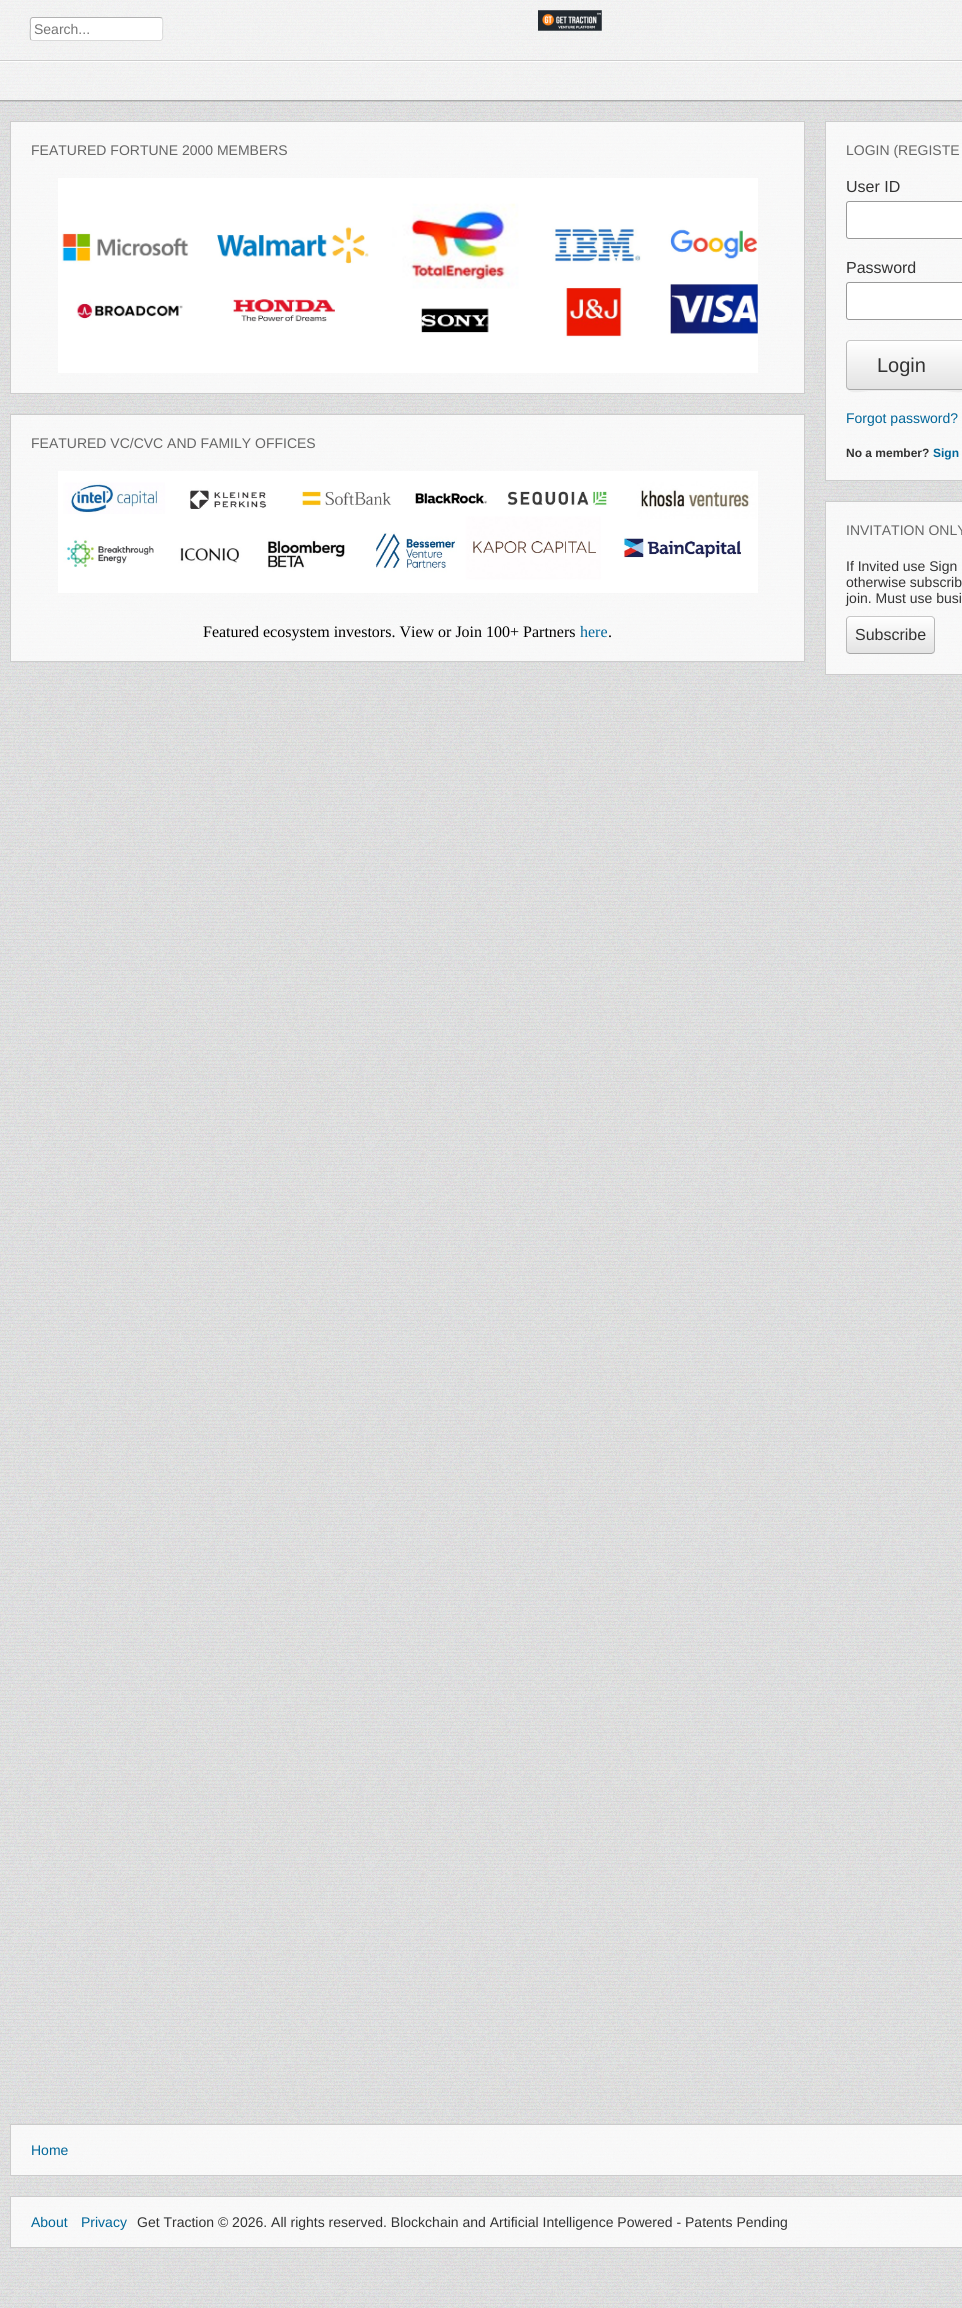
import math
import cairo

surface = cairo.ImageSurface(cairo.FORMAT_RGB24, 962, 2308)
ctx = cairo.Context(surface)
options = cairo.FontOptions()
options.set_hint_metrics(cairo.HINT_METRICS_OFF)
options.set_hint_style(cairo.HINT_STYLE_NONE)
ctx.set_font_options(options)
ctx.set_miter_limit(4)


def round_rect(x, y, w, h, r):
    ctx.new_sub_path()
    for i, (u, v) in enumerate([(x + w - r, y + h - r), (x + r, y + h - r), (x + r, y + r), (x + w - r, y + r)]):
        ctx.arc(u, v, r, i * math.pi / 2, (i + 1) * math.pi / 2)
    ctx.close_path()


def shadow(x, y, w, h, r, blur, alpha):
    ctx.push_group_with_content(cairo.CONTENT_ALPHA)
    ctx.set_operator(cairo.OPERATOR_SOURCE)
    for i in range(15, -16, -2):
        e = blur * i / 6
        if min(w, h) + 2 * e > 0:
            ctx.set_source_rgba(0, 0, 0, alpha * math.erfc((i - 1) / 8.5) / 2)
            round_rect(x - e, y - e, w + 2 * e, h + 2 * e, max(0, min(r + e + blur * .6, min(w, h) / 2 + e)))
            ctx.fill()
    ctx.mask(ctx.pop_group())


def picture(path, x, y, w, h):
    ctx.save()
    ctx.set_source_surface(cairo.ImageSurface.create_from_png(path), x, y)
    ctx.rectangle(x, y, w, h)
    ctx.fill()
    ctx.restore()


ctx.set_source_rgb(1, 1, 1)
ctx.paint()
picture("img1.png", 0, 0, 962, 2308)
ctx.save()
ctx.rectangle(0, 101, 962, 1)
ctx.clip()
ctx.set_source_rgb(0.2, 0.2, 0.2)
shadow(0, 62, 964, 40, 0, 0.5, 0.15)
ctx.restore()
ctx.set_source_rgba(1, 1, 1, 0.6)
ctx.rectangle(0, 0, 962, 61)
ctx.fill()
ctx.set_source_rgba(0.753, 0.753, 0.753, 0.7)
ctx.rectangle(0, 60, 962, 1)
ctx.fill()
ctx.set_source_rgb(1, 1, 1)
round_rect(30, 17, 133, 24, 3)
ctx.fill()
ctx.new_path()
ctx.move_to(162, 18)
ctx.curve_to(163.5, 20, 162.5, 29.5, 162.5, 32)
ctx.curve_to(162.5, 34, 164, 40.5, 160, 40.5)
ctx.line_to(33, 40.5)
ctx.line_to(31, 40)
ctx.set_source_rgb(0.851, 0.851, 0.851)
ctx.set_line_width(1)
ctx.stroke()
ctx.new_path()
ctx.move_to(31, 40)
ctx.curve_to(29.5, 38, 30.5, 28.5, 30.5, 26)
ctx.curve_to(30.5, 24, 29, 17.5, 33, 17.5)
ctx.line_to(160, 17.5)
ctx.line_to(162, 18)
ctx.set_source_rgb(0.698, 0.698, 0.698)
ctx.stroke()
ctx.select_font_face("Liberation Sans")
ctx.set_font_size(14)
ctx.set_source_rgb(0.459, 0.459, 0.459)
ctx.move_to(34, 34)
ctx.show_text("Search...")
picture("img2.png", 538, 10, 64, 21)
ctx.set_source_rgba(1, 1, 1, 0.6)
ctx.rectangle(0, 61, 962, 40)
ctx.fill()
ctx.set_source_rgba(1, 1, 1, 0.9)
ctx.rectangle(0, 61, 962, 1)
ctx.fill()
ctx.set_source_rgba(0.251, 0.251, 0.251, 0.4)
ctx.rectangle(0, 100, 962, 1)
ctx.fill()
ctx.set_source_rgba(1, 1, 1, 0.8)
ctx.rectangle(10.5, 121.5, 794, 272)
ctx.fill_preserve()
ctx.set_source_rgb(0.8, 0.8, 0.8)
ctx.stroke()
ctx.set_source_rgb(0.4, 0.4, 0.4)
ctx.move_to(31, 155)
ctx.show_text("FEATURED FORTUNE 2000 MEMBERS")
picture("img3.png", 58, 178, 700, 195)
ctx.set_source_rgba(1, 1, 1, 0.8)
ctx.rectangle(10.5, 414.5, 794, 247)
ctx.fill_preserve()
ctx.set_source_rgb(0.8, 0.8, 0.8)
ctx.stroke()
ctx.set_source_rgb(0.4, 0.4, 0.4)
ctx.move_to(31, 448)
ctx.show_text("FEATURED VC/CVC AND FAMILY OFFICES")
picture("img4.png", 58, 471, 700, 122)
ctx.select_font_face("Liberation Serif")
ctx.set_font_size(16)
ctx.set_source_rgb(0, 0, 0)
ctx.move_to(203, 637)
ctx.show_text("Featured ecosystem investors. View or Join 100+ Partners")
ctx.set_source_rgb(0, 0.4, 0.6)
ctx.move_to(580, 637)
ctx.show_text("here")
ctx.set_source_rgb(0, 0, 0)
ctx.move_to(608, 637)
ctx.show_text(".")
ctx.set_source_rgba(1, 1, 1, 0.8)
ctx.rectangle(825.5, 121.5, 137, 359)
ctx.fill_preserve()
ctx.set_source_rgb(0.8, 0.8, 0.8)
ctx.stroke()
ctx.select_font_face("Liberation Sans")
ctx.set_font_size(14)
ctx.set_source_rgb(0.4, 0.4, 0.4)
ctx.move_to(846, 155)
ctx.show_text("LOGIN (REGISTE")
ctx.set_font_size(16)
ctx.set_source_rgb(0.2, 0.2, 0.2)
ctx.move_to(846, 192)
ctx.show_text("User ID")
ctx.set_source_rgb(1, 1, 1)
ctx.new_path()
ctx.move_to(849, 201)
ctx.line_to(962, 201)
ctx.line_to(962, 239)
ctx.line_to(849, 239)
ctx.curve_to(847.5, 239, 846, 237.5, 846, 236)
ctx.line_to(846, 204)
ctx.curve_to(846, 202.5, 847.5, 201, 849, 201)
ctx.close_path()
ctx.fill()
round_rect(846.5, 201.5, 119, 37, 2.5)
ctx.set_source_rgb(0.6, 0.6, 0.6)
ctx.stroke()
ctx.set_source_rgb(0.2, 0.2, 0.2)
ctx.move_to(846, 273)
ctx.show_text("Password")
ctx.set_source_rgb(1, 1, 1)
ctx.new_path()
ctx.move_to(849, 282)
ctx.line_to(962, 282)
ctx.line_to(962, 320)
ctx.line_to(849, 320)
ctx.curve_to(847.5, 320, 846, 318.5, 846, 317)
ctx.line_to(846, 285)
ctx.curve_to(846, 283.5, 847.5, 282, 849, 282)
ctx.close_path()
ctx.fill()
round_rect(846.5, 282.5, 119, 37, 2.5)
ctx.set_source_rgb(0.6, 0.6, 0.6)
ctx.stroke()
ctx.set_source_rgba(0.502, 0.502, 0.502, 0.1)
ctx.new_path()
ctx.move_to(846, 386)
ctx.curve_to(846, 396, 866, 391, 869, 391)
ctx.line_to(945, 391)
ctx.curve_to(948, 391, 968, 396, 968, 386)
ctx.curve_to(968, 388, 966, 390, 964, 390)
ctx.line_to(850, 390)
ctx.curve_to(848, 390, 846, 388, 846, 386)
ctx.close_path()
ctx.fill()
ctx.save()
round_rect(846, 340, 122, 50, 4)
ctx.clip()
gradient = cairo.LinearGradient(907, 341, 907, 389)
gradient.add_color_stop_rgba(0, 1, 1, 1, 1)
gradient.add_color_stop_rgba(1, 0.89, 0.89, 0.89, 1)
ctx.set_source(gradient)
ctx.rectangle(846, 341, 116, 48)
ctx.fill()
ctx.restore()
ctx.new_path()
ctx.move_to(847.5, 341.5)
ctx.curve_to(848, 341, 849, 340.5, 850, 340.5)
ctx.line_to(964, 340.5)
ctx.curve_to(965, 340.5, 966, 341, 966.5, 341.5)
ctx.set_source_rgb(0.784, 0.784, 0.784)
ctx.stroke()
ctx.new_path()
ctx.move_to(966.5, 388.5)
ctx.curve_to(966, 389, 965, 389.5, 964, 389.5)
ctx.line_to(850, 389.5)
ctx.curve_to(849, 389.5, 848, 389, 847.5, 388.5)
ctx.set_source_rgb(0.659, 0.659, 0.659)
ctx.stroke()
ctx.new_path()
ctx.move_to(847.5, 388.5)
ctx.curve_to(847, 388, 846.5, 387, 846.5, 386)
ctx.line_to(846.5, 344)
ctx.curve_to(846.5, 343, 847, 342, 847.5, 341.5)
ctx.set_source_rgb(0.722, 0.722, 0.722)
ctx.stroke()
ctx.set_font_size(20)
ctx.set_source_rgb(0.2, 0.2, 0.2)
ctx.move_to(877, 372)
ctx.show_text("Login")
ctx.set_font_size(14)
ctx.set_source_rgb(0, 0.4, 0.6)
ctx.move_to(846, 423)
ctx.show_text("Forgot password?")
ctx.select_font_face("Liberation Sans", cairo.FONT_SLANT_NORMAL, cairo.FONT_WEIGHT_BOLD)
ctx.set_font_size(12)
ctx.set_source_rgb(0.2, 0.2, 0.2)
ctx.move_to(846, 457)
ctx.show_text("No a member?")
ctx.set_source_rgb(0, 0.4, 0.6)
ctx.move_to(933, 457)
ctx.show_text("Sign")
ctx.set_source_rgba(1, 1, 1, 0.8)
ctx.rectangle(825.5, 501.5, 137, 173)
ctx.fill_preserve()
ctx.set_source_rgb(0.8, 0.8, 0.8)
ctx.stroke()
ctx.select_font_face("Liberation Sans")
ctx.set_font_size(14)
ctx.set_source_rgb(0.4, 0.4, 0.4)
ctx.move_to(846, 535)
ctx.show_text("INVITATION ONLY")
ctx.set_source_rgb(0.2, 0.2, 0.2)
ctx.move_to(846, 571)
ctx.show_text("If Invited use Sign")
ctx.move_to(846, 587)
ctx.show_text("otherwise subscrib")
ctx.move_to(846, 603)
ctx.show_text("join. Must use busi")
ctx.save()
ctx.rectangle(846, 558, 116, 96)
ctx.clip()
ctx.set_source_rgba(0.502, 0.502, 0.502, 0.1)
ctx.new_path()
ctx.move_to(846, 650)
ctx.curve_to(846, 658, 859, 655, 864, 655)
ctx.line_to(918, 655)
ctx.curve_to(922, 655, 935, 658, 935, 650)
ctx.curve_to(935, 652, 933, 654, 931, 654)
ctx.line_to(850, 654)
ctx.curve_to(848, 654, 846, 652, 846, 650)
ctx.close_path()
ctx.fill()
ctx.restore()
ctx.save()
round_rect(846, 616, 89, 38, 4)
ctx.clip()
gradient = cairo.LinearGradient(891, 581, 891, 617)
gradient.add_color_stop_rgba(0, 1, 1, 1, 1)
gradient.add_color_stop_rgba(1, 0.89, 0.89, 0.89, 1)
ctx.set_source(gradient)
ctx.rectangle(846, 616, 89, 1)
ctx.fill()
gradient = cairo.LinearGradient(891, 617, 891, 653)
gradient.add_color_stop_rgba(0, 1, 1, 1, 1)
gradient.add_color_stop_rgba(1, 0.89, 0.89, 0.89, 1)
ctx.set_source(gradient)
ctx.rectangle(846, 617, 89, 36)
ctx.fill()
ctx.restore()
ctx.new_path()
ctx.move_to(847.5, 617.5)
ctx.line_to(849.5, 616.5)
ctx.line_to(931.5, 616.5)
ctx.line_to(933.5, 617.5)
ctx.set_source_rgb(0.784, 0.784, 0.784)
ctx.stroke()
ctx.new_path()
ctx.move_to(933.5, 617.5)
ctx.curve_to(934, 618, 934.5, 619, 934.5, 620)
ctx.line_to(934.5, 650)
ctx.curve_to(934.5, 651, 934, 652, 933.5, 652.5)
ctx.set_source_rgb(0.722, 0.722, 0.722)
ctx.stroke()
ctx.new_path()
ctx.move_to(933.5, 652.5)
ctx.line_to(931.5, 653.5)
ctx.line_to(849.5, 653.5)
ctx.line_to(847.5, 652.5)
ctx.set_source_rgb(0.659, 0.659, 0.659)
ctx.stroke()
ctx.new_path()
ctx.move_to(847.5, 652.5)
ctx.curve_to(847, 652, 846.5, 651, 846.5, 650)
ctx.line_to(846.5, 620)
ctx.curve_to(846.5, 619, 847, 618, 847.5, 617.5)
ctx.set_source_rgb(0.722, 0.722, 0.722)
ctx.stroke()
ctx.set_font_size(16)
ctx.set_source_rgb(0.2, 0.2, 0.2)
ctx.move_to(855, 640)
ctx.show_text("Subscribe")
ctx.set_source_rgba(1, 1, 1, 0.8)
ctx.rectangle(10.5, 2124.5, 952, 51)
ctx.fill_preserve()
ctx.set_source_rgb(0.8, 0.8, 0.8)
ctx.stroke()
ctx.set_font_size(14)
ctx.set_source_rgb(0, 0.4, 0.6)
ctx.move_to(31, 2155)
ctx.show_text("Home")
ctx.set_source_rgba(1, 1, 1, 0.8)
ctx.rectangle(10.5, 2196.5, 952, 51)
ctx.fill_preserve()
ctx.set_source_rgb(0.8, 0.8, 0.8)
ctx.stroke()
ctx.set_source_rgb(0, 0.4, 0.6)
ctx.move_to(31, 2227)
ctx.show_text("About")
ctx.move_to(81, 2227)
ctx.show_text("Privacy")
ctx.set_source_rgb(0.2, 0.2, 0.2)
ctx.move_to(137, 2227)
ctx.show_text("Get Traction © 2026. All rights reserved. Blockchain and Artificial Intelligence Powered - Patents Pending")
surface.write_to_png("page.png")
